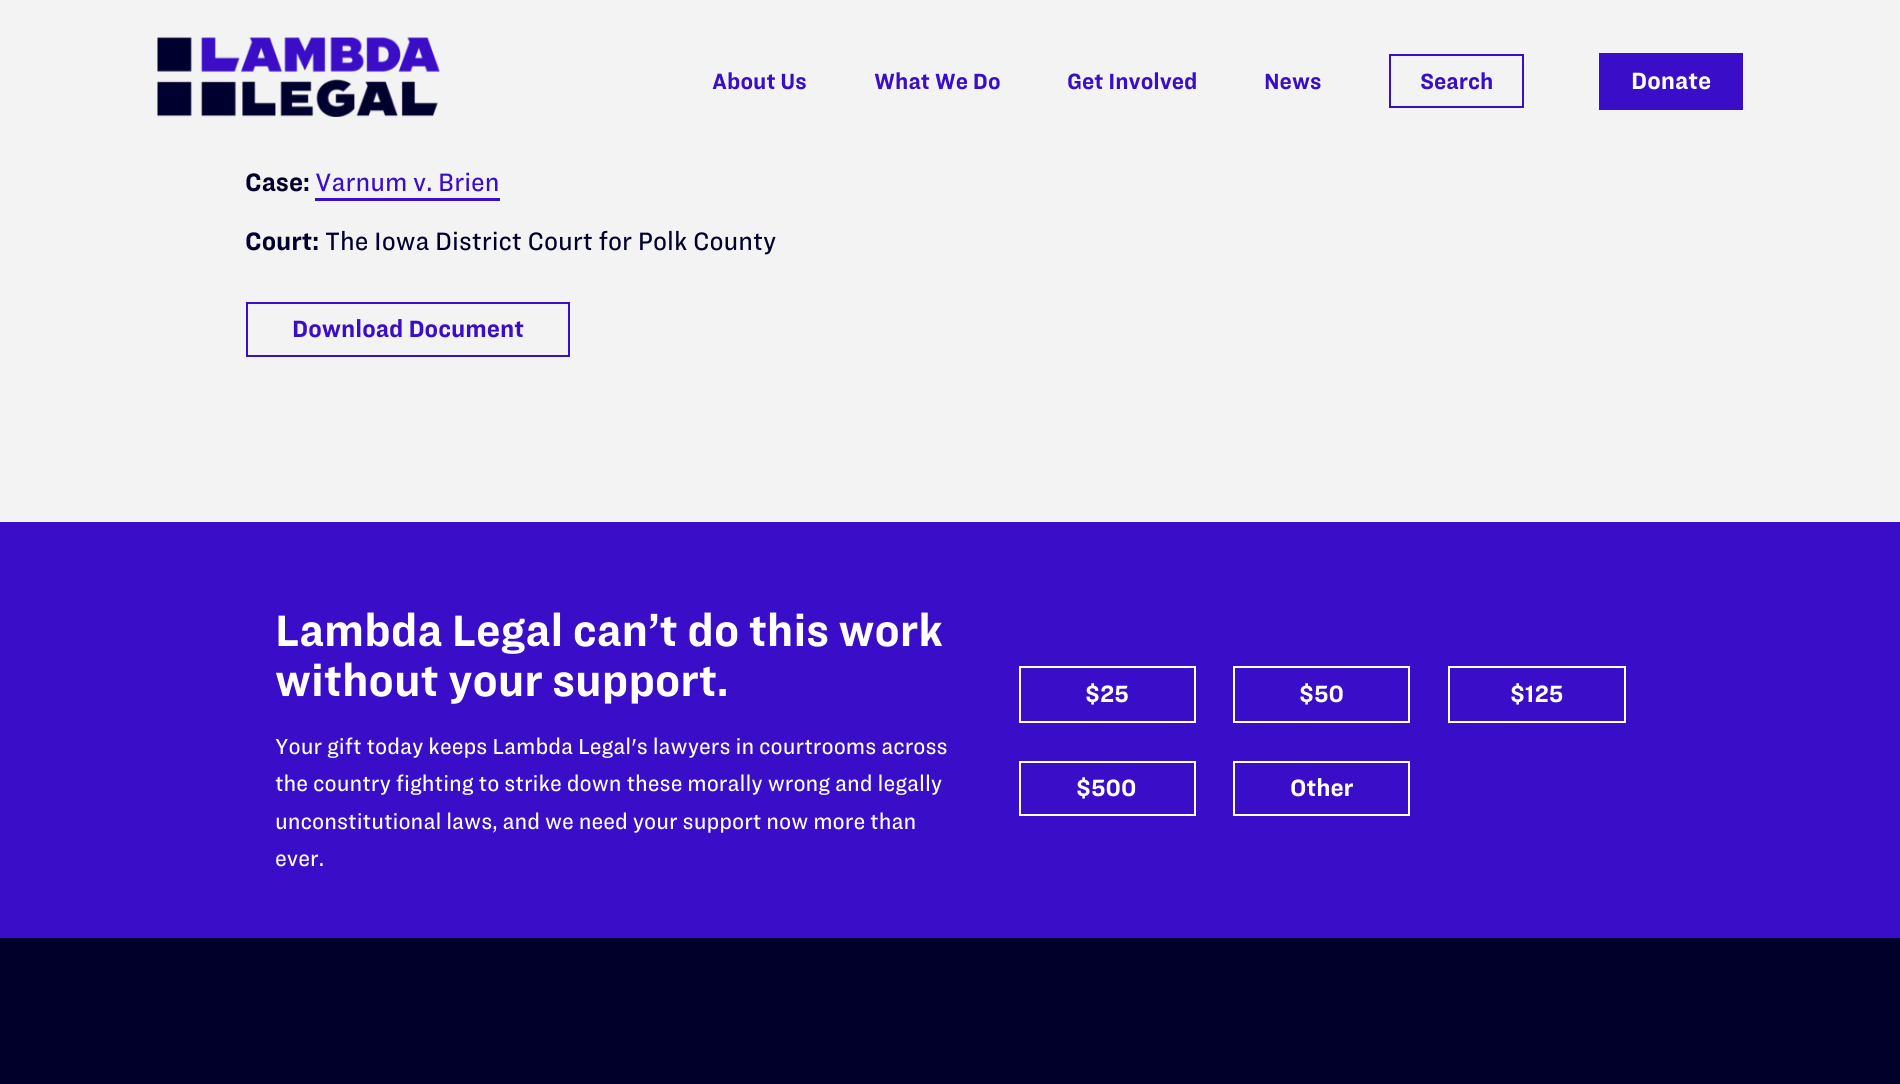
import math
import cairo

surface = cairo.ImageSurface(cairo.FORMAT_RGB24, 1900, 1084)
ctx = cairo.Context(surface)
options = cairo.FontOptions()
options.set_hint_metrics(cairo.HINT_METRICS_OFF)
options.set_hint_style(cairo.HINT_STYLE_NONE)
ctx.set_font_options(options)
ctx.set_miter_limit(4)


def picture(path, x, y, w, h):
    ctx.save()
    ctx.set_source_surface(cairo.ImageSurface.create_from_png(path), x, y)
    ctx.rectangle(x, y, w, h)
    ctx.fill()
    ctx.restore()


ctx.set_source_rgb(0.953, 0.953, 0.953)
ctx.paint()
picture("img1.png", 157, 37, 283, 80)
ctx.select_font_face("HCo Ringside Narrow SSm", cairo.FONT_SLANT_NORMAL, cairo.FONT_WEIGHT_BOLD)
ctx.set_font_size(21)
ctx.set_source_rgb(0.227, 0.051, 0.784)
ctx.move_to(712, 89)
ctx.show_text("About Us")
ctx.move_to(874, 89)
ctx.show_text("What We Do")
ctx.move_to(1067, 89)
ctx.show_text("Get Involved")
ctx.move_to(1264, 89)
ctx.show_text("News")
ctx.rectangle(1390, 55, 133, 52)
ctx.stroke()
ctx.move_to(1420, 89)
ctx.show_text("Search")
ctx.rectangle(1599, 53, 144, 57)
ctx.fill()
ctx.set_font_size(22.5)
ctx.set_source_rgb(1, 1, 1)
ctx.move_to(1631, 89)
ctx.show_text("Donate")
ctx.set_font_size(24)
ctx.set_source_rgb(0, 0, 0.165)
ctx.move_to(245, 191)
ctx.show_text("Case:")
ctx.select_font_face("HCo Ringside Narrow SSm")
ctx.set_source_rgb(0.227, 0.051, 0.784)
ctx.move_to(315, 191)
ctx.show_text("Varnum v. Brien")
ctx.rectangle(315, 198, 185, 3)
ctx.fill()
ctx.select_font_face("HCo Ringside Narrow SSm", cairo.FONT_SLANT_NORMAL, cairo.FONT_WEIGHT_BOLD)
ctx.set_source_rgb(0, 0, 0.165)
ctx.move_to(245, 250)
ctx.show_text("Court:")
ctx.select_font_face("HCo Ringside Narrow SSm")
ctx.move_to(325, 250)
ctx.show_text("The Iowa District Court for Polk County")
ctx.rectangle(247, 303, 322, 53)
ctx.set_source_rgb(0.227, 0.051, 0.784)
ctx.stroke()
ctx.select_font_face("HCo Ringside Narrow SSm", cairo.FONT_SLANT_NORMAL, cairo.FONT_WEIGHT_BOLD)
ctx.set_font_size(22.5)
ctx.move_to(292, 337)
ctx.show_text("Download Document")
ctx.rectangle(0, 522, 1900, 416)
ctx.fill()
ctx.set_font_size(42)
ctx.set_source_rgb(1, 1, 1)
ctx.move_to(275, 646)
ctx.show_text("Lambda Legal can’t do this work")
ctx.move_to(275, 696)
ctx.show_text("without your support.")
ctx.select_font_face("HCo Ringside Narrow SSm")
ctx.set_font_size(20.75)
ctx.move_to(275, 754)
ctx.show_text("Your gift today keeps Lambda Legal's lawyers in courtrooms across")
ctx.move_to(275, 791)
ctx.show_text("the country fighting to strike down these morally wrong and legally")
ctx.move_to(275, 829)
ctx.show_text("unconstitutional laws, and we need your support now more than")
ctx.move_to(275, 866)
ctx.show_text("ever.")
ctx.rectangle(1020, 667, 175, 55)
ctx.stroke()
ctx.select_font_face("HCo Ringside Narrow SSm", cairo.FONT_SLANT_NORMAL, cairo.FONT_WEIGHT_BOLD)
ctx.set_font_size(22.5)
ctx.move_to(1085, 702)
ctx.show_text("$25")
ctx.rectangle(1234, 667, 175, 55)
ctx.stroke()
ctx.move_to(1299, 702)
ctx.show_text("$50")
ctx.rectangle(1449, 667, 176, 55)
ctx.stroke()
ctx.move_to(1510, 702)
ctx.show_text("$125")
ctx.rectangle(1020, 762, 175, 53)
ctx.stroke()
ctx.move_to(1076, 796)
ctx.show_text("$500")
ctx.rectangle(1234, 762, 175, 53)
ctx.stroke()
ctx.move_to(1290, 796)
ctx.show_text("Other")
ctx.set_source_rgb(0, 0, 0.165)
ctx.rectangle(0, 938, 1900, 146)
ctx.fill()
surface.write_to_png("page.png")
